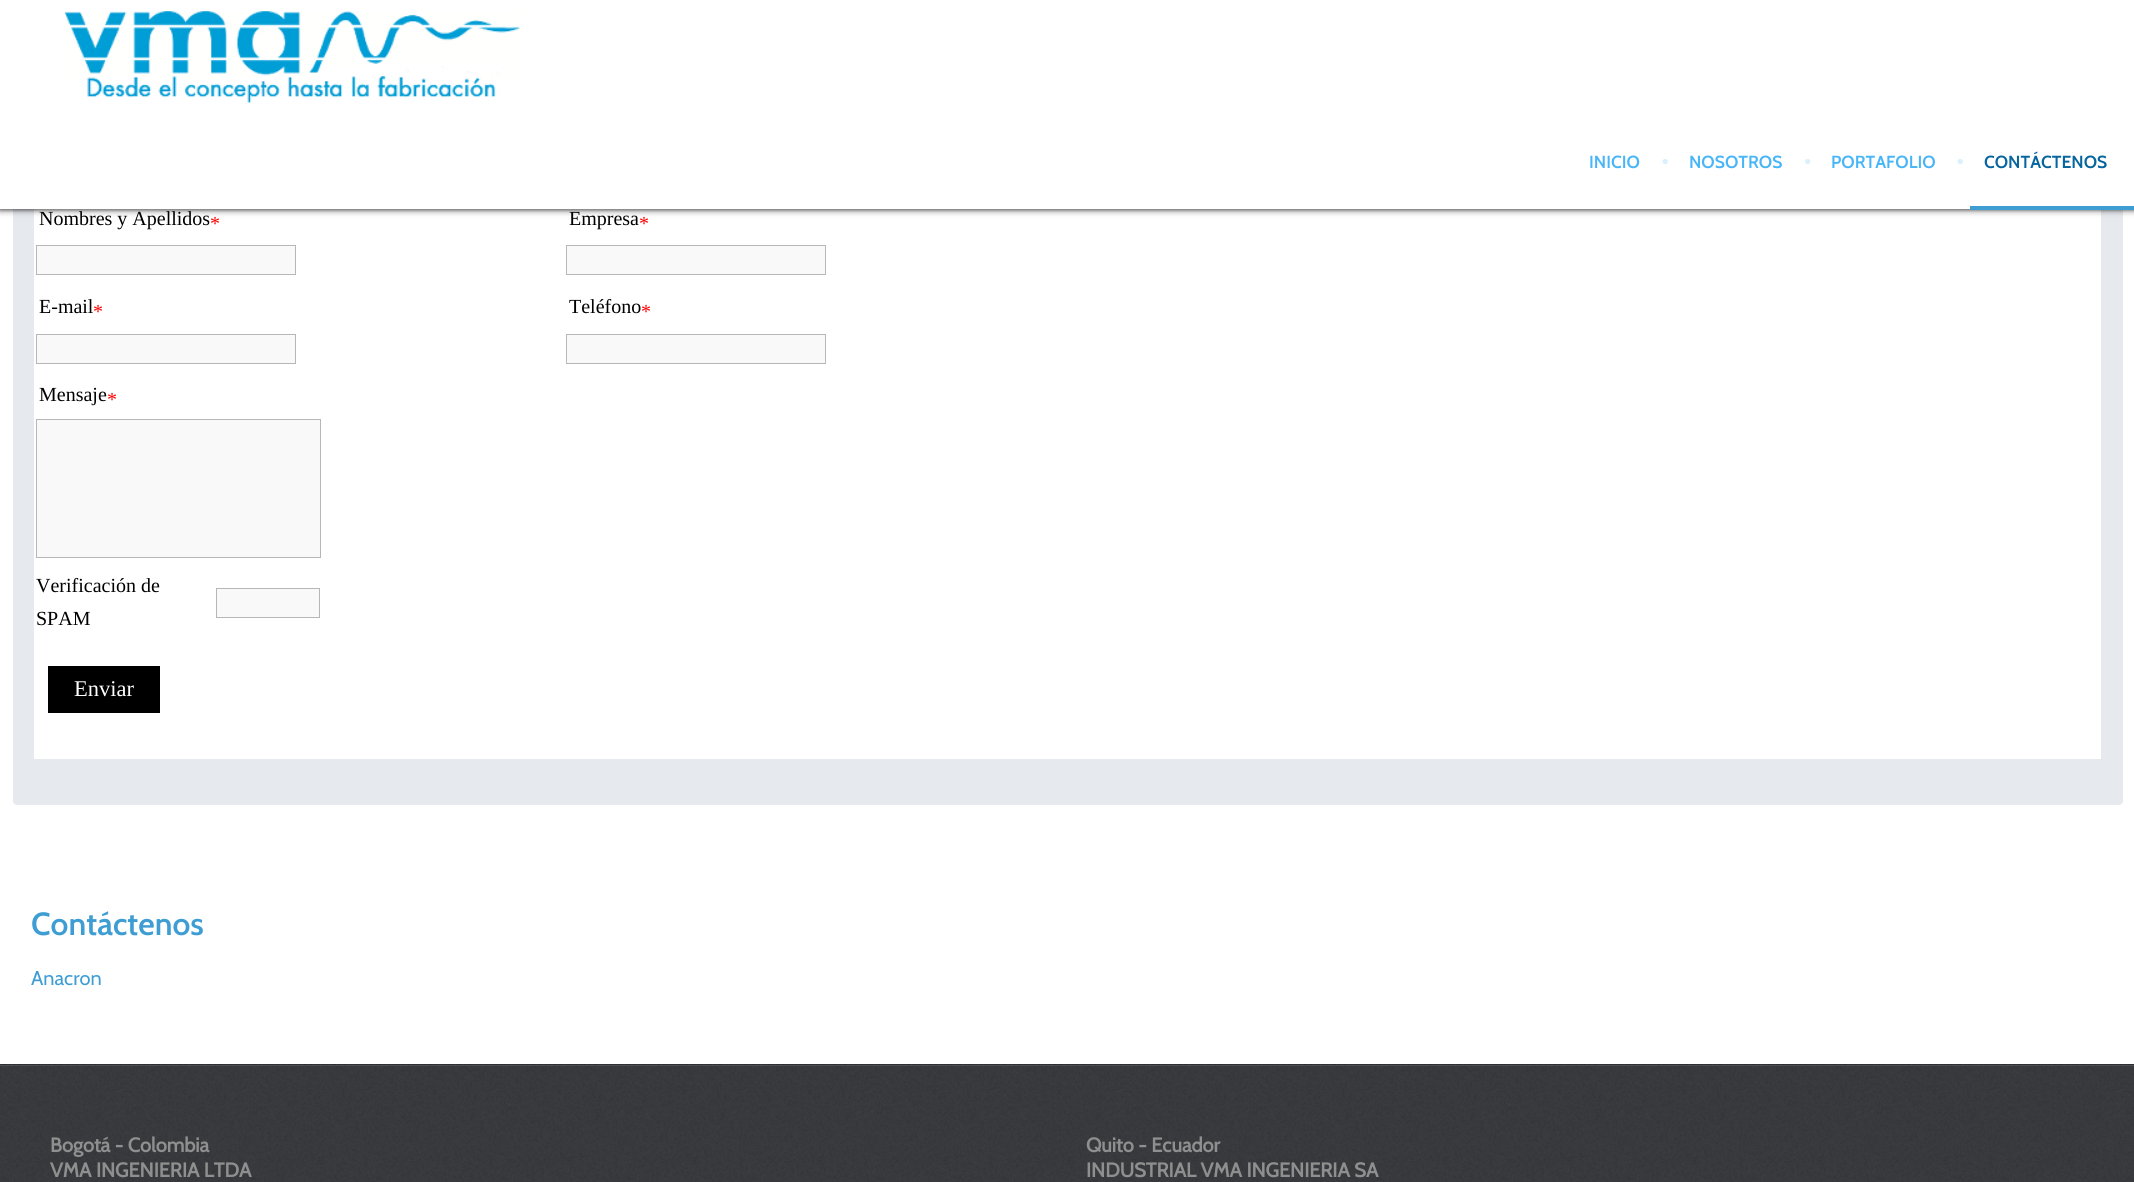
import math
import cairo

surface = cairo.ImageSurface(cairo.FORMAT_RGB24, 2134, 1182)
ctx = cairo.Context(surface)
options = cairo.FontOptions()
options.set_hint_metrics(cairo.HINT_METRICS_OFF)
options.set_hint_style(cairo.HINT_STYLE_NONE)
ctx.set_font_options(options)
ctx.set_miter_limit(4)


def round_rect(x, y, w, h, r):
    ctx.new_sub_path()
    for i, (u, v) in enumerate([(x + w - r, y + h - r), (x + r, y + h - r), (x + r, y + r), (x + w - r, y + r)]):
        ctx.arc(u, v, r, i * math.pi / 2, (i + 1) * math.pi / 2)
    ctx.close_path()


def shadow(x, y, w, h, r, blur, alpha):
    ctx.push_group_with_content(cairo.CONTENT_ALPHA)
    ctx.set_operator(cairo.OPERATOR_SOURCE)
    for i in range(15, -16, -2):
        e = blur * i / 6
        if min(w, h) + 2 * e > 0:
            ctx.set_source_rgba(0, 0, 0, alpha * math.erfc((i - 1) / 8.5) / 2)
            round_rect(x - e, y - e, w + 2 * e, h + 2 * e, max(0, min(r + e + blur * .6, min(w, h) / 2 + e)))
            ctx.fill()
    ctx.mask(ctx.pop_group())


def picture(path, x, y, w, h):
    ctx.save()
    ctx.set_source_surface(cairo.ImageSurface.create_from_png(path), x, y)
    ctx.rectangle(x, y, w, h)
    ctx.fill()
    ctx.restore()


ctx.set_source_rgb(1, 1, 1)
ctx.paint()
ctx.set_source_rgb(0.902, 0.914, 0.933)
round_rect(13, 124, 2110, 681, 4)
ctx.fill()
ctx.set_source_rgb(1, 1, 1)
ctx.rectangle(34, 209, 2067, 550)
ctx.fill()
ctx.set_source_rgb(0, 0, 0)
shadow(0, 1, 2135, 209, 0, 4, 0.4)
shadow(0, 1, 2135, 209, 0, 2, 0.5)
ctx.set_source_rgb(1, 1, 1)
ctx.rectangle(0, 0, 2134, 209)
ctx.fill()
picture("img1.png", 64, 11, 457, 92)
ctx.select_font_face("Cabin SemiBold")
ctx.set_font_size(17.5)
ctx.set_source_rgb(0.278, 0.71, 0.969)
ctx.move_to(1589, 168)
ctx.show_text("INICIO")
picture("img2.png", 1662, 159, 6, 6)
ctx.move_to(1689, 168)
ctx.show_text("NOSOTROS")
picture("img3.png", 1805, 159, 6, 6)
ctx.move_to(1831, 168)
ctx.show_text("PORTAFOLIO")
picture("img2.png", 1957, 159, 6, 6)
ctx.set_source_rgb(0.027, 0.396, 0.62)
ctx.move_to(1984, 168)
ctx.show_text("CONTÁCTENOS")
ctx.set_source_rgb(0.243, 0.616, 0.827)
ctx.rectangle(1970, 206, 164, 4)
ctx.fill()
ctx.select_font_face("Liberation Serif")
ctx.set_font_size(20)
ctx.set_source_rgb(0, 0, 0)
ctx.move_to(39, 225)
ctx.show_text("Nombres y Apellidos")
ctx.set_source_rgb(1, 0, 0)
ctx.move_to(210, 230)
ctx.show_text("*")
ctx.set_source_rgb(0.973, 0.973, 0.973)
ctx.rectangle(36.5, 245.5, 259, 29)
ctx.fill_preserve()
ctx.set_source_rgb(0.718, 0.718, 0.718)
ctx.set_line_width(1)
ctx.stroke()
ctx.set_source_rgb(0, 0, 0)
ctx.move_to(39, 313)
ctx.show_text("E-mail")
ctx.set_source_rgb(1, 0, 0)
ctx.move_to(93, 318)
ctx.show_text("*")
ctx.set_source_rgb(0.973, 0.973, 0.973)
ctx.rectangle(36.5, 334.5, 259, 29)
ctx.fill_preserve()
ctx.set_source_rgb(0.718, 0.718, 0.718)
ctx.stroke()
ctx.set_source_rgb(0, 0, 0)
ctx.move_to(39, 401)
ctx.show_text("Mensaje")
ctx.set_source_rgb(1, 0, 0)
ctx.move_to(107, 406)
ctx.show_text("*")
ctx.set_source_rgb(0.973, 0.973, 0.973)
ctx.rectangle(36.5, 419.5, 284, 138)
ctx.fill_preserve()
ctx.set_source_rgb(0.718, 0.718, 0.718)
ctx.stroke()
ctx.set_source_rgb(0, 0, 0)
ctx.move_to(36, 592)
ctx.show_text("Verificación de")
ctx.move_to(36, 625)
ctx.show_text("SPAM")
ctx.set_source_rgb(0.973, 0.973, 0.973)
ctx.rectangle(216.5, 588.5, 103, 29)
ctx.fill_preserve()
ctx.set_source_rgb(0.718, 0.718, 0.718)
ctx.stroke()
ctx.set_source_rgb(0, 0, 0)
ctx.rectangle(48, 666, 112, 47)
ctx.fill()
ctx.set_font_size(22.5)
ctx.set_source_rgb(1, 1, 1)
ctx.move_to(74, 696)
ctx.show_text("Enviar")
ctx.set_font_size(20)
ctx.set_source_rgb(0, 0, 0)
ctx.move_to(569, 225)
ctx.show_text("Empresa")
ctx.set_source_rgb(1, 0, 0)
ctx.move_to(639, 230)
ctx.show_text("*")
ctx.set_source_rgb(0.973, 0.973, 0.973)
ctx.rectangle(566.5, 245.5, 259, 29)
ctx.fill_preserve()
ctx.set_source_rgb(0.718, 0.718, 0.718)
ctx.stroke()
ctx.set_source_rgb(0, 0, 0)
ctx.move_to(569, 313)
ctx.show_text("Teléfono")
ctx.set_source_rgb(1, 0, 0)
ctx.move_to(641, 318)
ctx.show_text("*")
ctx.set_source_rgb(0.973, 0.973, 0.973)
ctx.rectangle(566.5, 334.5, 259, 29)
ctx.fill_preserve()
ctx.set_source_rgb(0.718, 0.718, 0.718)
ctx.stroke()
ctx.select_font_face("Cabin SemiBold")
ctx.set_font_size(32)
ctx.set_source_rgb(0.243, 0.616, 0.827)
ctx.move_to(31, 935)
ctx.show_text("Contáctenos")
ctx.select_font_face("Cabin")
ctx.set_font_size(20)
ctx.move_to(31, 985)
ctx.show_text("Anacron")
ctx.set_source_rgb(0.208, 0.212, 0.227)
ctx.rectangle(0, 1066, 2134, 116)
ctx.fill()
ctx.set_source_rgb(0.286, 0.29, 0.306)
ctx.rectangle(0, 1065, 2134, 1)
ctx.fill()
ctx.set_source_rgb(0.165, 0.169, 0.18)
ctx.rectangle(0, 1064, 2134, 1)
ctx.fill()
picture("img4.png", 0, 1064, 2134, 118)
ctx.select_font_face("Cabin", cairo.FONT_SLANT_NORMAL, cairo.FONT_WEIGHT_BOLD)
ctx.set_source_rgb(0.561, 0.561, 0.561)
ctx.move_to(50, 1152)
ctx.show_text("Bogotá - Colombia")
ctx.move_to(50, 1177)
ctx.show_text("VMA INGENIERIA LTDA")
ctx.move_to(1086, 1152)
ctx.show_text("Quito - Ecuador")
ctx.move_to(1086, 1177)
ctx.show_text("INDUSTRIAL VMA INGENIERIA SA")
surface.write_to_png("page.png")
